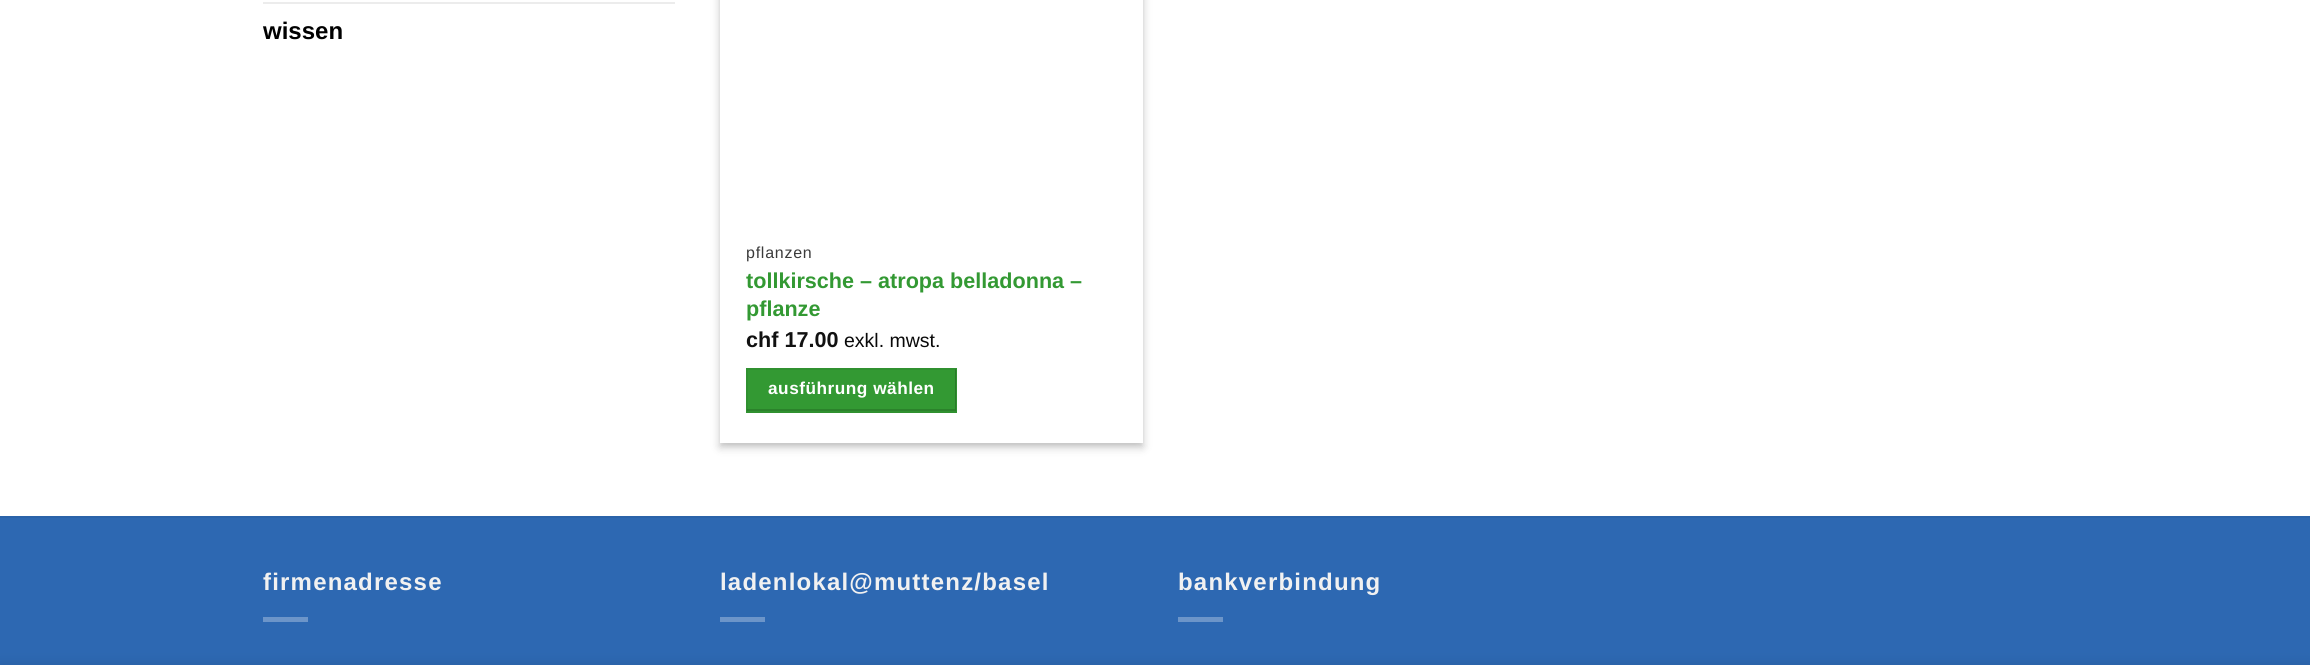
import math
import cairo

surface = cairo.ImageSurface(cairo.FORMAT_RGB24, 2310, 665)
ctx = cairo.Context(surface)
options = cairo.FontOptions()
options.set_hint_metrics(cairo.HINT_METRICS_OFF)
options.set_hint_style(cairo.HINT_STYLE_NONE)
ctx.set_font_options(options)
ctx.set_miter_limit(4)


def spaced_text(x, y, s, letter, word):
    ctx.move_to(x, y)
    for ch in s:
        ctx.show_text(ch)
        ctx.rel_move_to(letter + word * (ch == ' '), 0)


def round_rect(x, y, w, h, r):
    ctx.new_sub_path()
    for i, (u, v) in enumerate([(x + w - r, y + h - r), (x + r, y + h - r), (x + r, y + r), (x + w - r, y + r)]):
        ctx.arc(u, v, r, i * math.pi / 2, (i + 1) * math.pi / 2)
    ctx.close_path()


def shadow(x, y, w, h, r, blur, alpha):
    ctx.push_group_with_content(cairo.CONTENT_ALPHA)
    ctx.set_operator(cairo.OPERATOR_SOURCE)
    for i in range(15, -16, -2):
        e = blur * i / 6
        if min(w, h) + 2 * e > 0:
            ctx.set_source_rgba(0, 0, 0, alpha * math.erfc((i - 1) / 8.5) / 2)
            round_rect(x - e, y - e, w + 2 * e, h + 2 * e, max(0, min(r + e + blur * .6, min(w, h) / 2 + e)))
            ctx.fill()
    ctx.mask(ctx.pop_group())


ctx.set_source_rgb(1, 1, 1)
ctx.paint()
ctx.set_source_rgb(0.925, 0.925, 0.925)
ctx.rectangle(263, 2, 412, 2)
ctx.fill()
ctx.select_font_face("Liberation Sans", cairo.FONT_SLANT_NORMAL, cairo.FONT_WEIGHT_BOLD)
ctx.set_font_size(24)
ctx.set_source_rgb(0, 0, 0)
ctx.move_to(263, 39)
ctx.show_text("wissen")
ctx.set_source_rgb(0, 0, 0)
shadow(720, -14, 423, 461, 0, 4.5, 0.23)
shadow(726, -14, 411, 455, 0, 4.5, 0.16)
ctx.set_source_rgb(1, 1, 1)
ctx.rectangle(720, 0, 423, 443)
ctx.fill()
ctx.select_font_face("Liberation Sans")
ctx.set_font_size(16)
ctx.set_source_rgb(0.231, 0.231, 0.231)
spaced_text(746, 258, "pflanzen", 0.75, 0)
ctx.select_font_face("Liberation Sans", cairo.FONT_SLANT_NORMAL, cairo.FONT_WEIGHT_BOLD)
ctx.set_font_size(21.6)
ctx.set_source_rgb(0.2, 0.6, 0.2)
ctx.move_to(746, 288)
ctx.show_text("tollkirsche – atropa belladonna –")
ctx.move_to(746, 316)
ctx.show_text("pflanze")
ctx.set_source_rgb(0.067, 0.067, 0.067)
ctx.move_to(746, 347)
ctx.show_text("chf 17.00")
ctx.select_font_face("Liberation Sans")
ctx.set_font_size(19.5)
ctx.set_source_rgb(0.039, 0.039, 0.039)
ctx.move_to(844, 347)
ctx.show_text("exkl. mwst.")
ctx.set_source_rgb(0.2, 0.6, 0.2)
ctx.rectangle(747, 369, 209, 43)
ctx.fill_preserve()
ctx.set_source_rgb(0.188, 0.569, 0.188)
ctx.stroke()
ctx.select_font_face("Liberation Sans", cairo.FONT_SLANT_NORMAL, cairo.FONT_WEIGHT_BOLD)
ctx.set_font_size(17.25)
ctx.set_source_rgb(1, 1, 1)
spaced_text(768, 394, "ausführung wählen", 0.5, 0)
ctx.save()
ctx.rectangle(747, 369, 209, 42)
ctx.clip()
ctx.set_source_rgba(0, 0, 0, 0.15)
ctx.set_fill_rule(cairo.FILL_RULE_EVEN_ODD)
ctx.new_path()
ctx.move_to(598, 220)
ctx.line_to(1104, 220)
ctx.line_to(1104, 560)
ctx.line_to(598, 560)
ctx.close_path()
ctx.move_to(747, 367)
ctx.line_to(955, 367)
ctx.line_to(955, 409)
ctx.line_to(747, 409)
ctx.close_path()
ctx.fill()
ctx.restore()
ctx.set_source_rgb(0.176, 0.408, 0.698)
ctx.rectangle(0, 518, 2310, 147)
ctx.fill()
ctx.set_source_rgb(0.169, 0.388, 0.663)
ctx.rectangle(0, 516, 2310, 2)
ctx.fill()
ctx.set_font_size(24)
ctx.set_source_rgb(0.945, 0.945, 0.945)
spaced_text(263, 590, "firmenadresse", 1.2, 0)
ctx.set_source_rgb(0.424, 0.584, 0.788)
ctx.rectangle(263, 617, 45, 5)
ctx.fill()
ctx.set_source_rgb(0.945, 0.945, 0.945)
spaced_text(720, 590, "ladenlokal@muttenz/basel", 1.2, 0)
ctx.set_source_rgb(0.424, 0.584, 0.788)
ctx.rectangle(720, 617, 45, 5)
ctx.fill()
ctx.set_source_rgb(0.945, 0.945, 0.945)
spaced_text(1178, 590, "bankverbindung", 1.2, 0)
ctx.set_source_rgb(0.424, 0.584, 0.788)
ctx.rectangle(1178, 617, 45, 5)
ctx.fill()
ctx.set_source_rgb(0, 0, 0)
shadow(0, 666, 2310, 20, 0, 7, 0.14)
surface.write_to_png("page.png")
